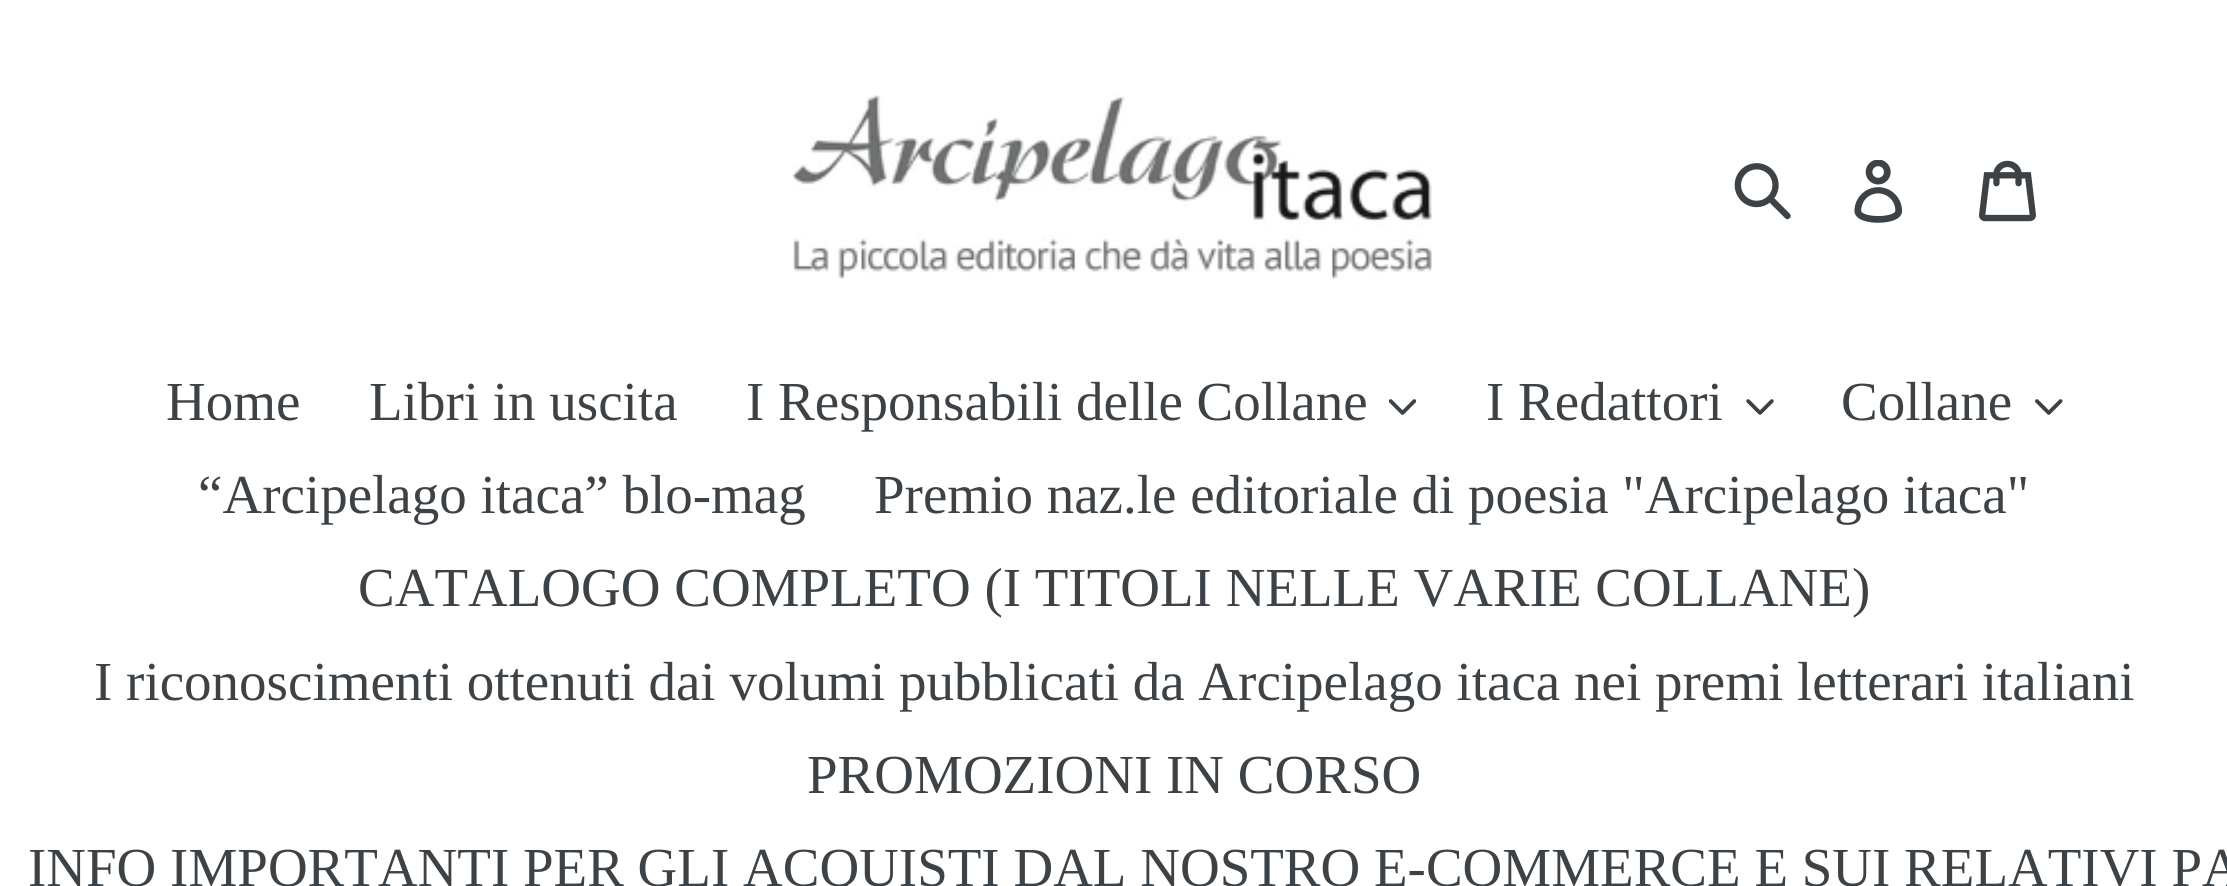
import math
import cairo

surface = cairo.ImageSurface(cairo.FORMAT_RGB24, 2227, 886)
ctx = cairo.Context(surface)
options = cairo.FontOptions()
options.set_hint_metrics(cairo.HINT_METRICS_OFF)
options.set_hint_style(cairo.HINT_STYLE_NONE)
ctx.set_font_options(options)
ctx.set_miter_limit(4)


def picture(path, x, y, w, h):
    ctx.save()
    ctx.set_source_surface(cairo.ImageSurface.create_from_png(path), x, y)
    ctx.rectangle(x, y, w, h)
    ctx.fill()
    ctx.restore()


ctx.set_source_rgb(1, 1, 1)
ctx.paint()
picture("img1.png", 792, 94, 640, 186)
picture("img2.png", 1734, 163, 57, 57)
picture("img3.png", 1854, 160, 48, 63)
picture("img4.png", 1979, 160, 57, 62)
ctx.select_font_face("Liberation Serif")
ctx.set_font_size(55)
ctx.set_source_rgb(0.239, 0.259, 0.275)
ctx.move_to(166, 420)
ctx.show_text("Home")
ctx.move_to(369, 420)
ctx.show_text("Libri in uscita")
ctx.move_to(746, 420)
ctx.show_text("I Responsabili delle Collane")
picture("img5.png", 1389, 399, 27, 16)
ctx.move_to(1486, 420)
ctx.show_text("I Redattori")
picture("img6.png", 1746, 399, 28, 16)
ctx.move_to(1841, 420)
ctx.show_text("Collane")
picture("img7.png", 2035, 399, 28, 16)
ctx.move_to(198, 513)
ctx.show_text("“Arcipelago itaca” blo-mag")
ctx.move_to(874, 513)
ctx.show_text("Premio naz.le editoriale di poesia \"Arcipelago itaca\"")
ctx.move_to(358, 606)
ctx.show_text("CATALOGO COMPLETO (I TITOLI NELLE VARIE COLLANE)")
ctx.move_to(94, 700)
ctx.show_text("I riconoscimenti ottenuti dai volumi pubblicati da Arcipelago itaca nei premi letterari italiani")
ctx.move_to(807, 793)
ctx.show_text("PROMOZIONI IN CORSO")
ctx.move_to(28, 886)
ctx.show_text("INFO IMPORTANTI PER GLI ACQUISTI DAL NOSTRO E-COMMERCE E SUI RELATIVI PA")
surface.write_to_png("page.png")
